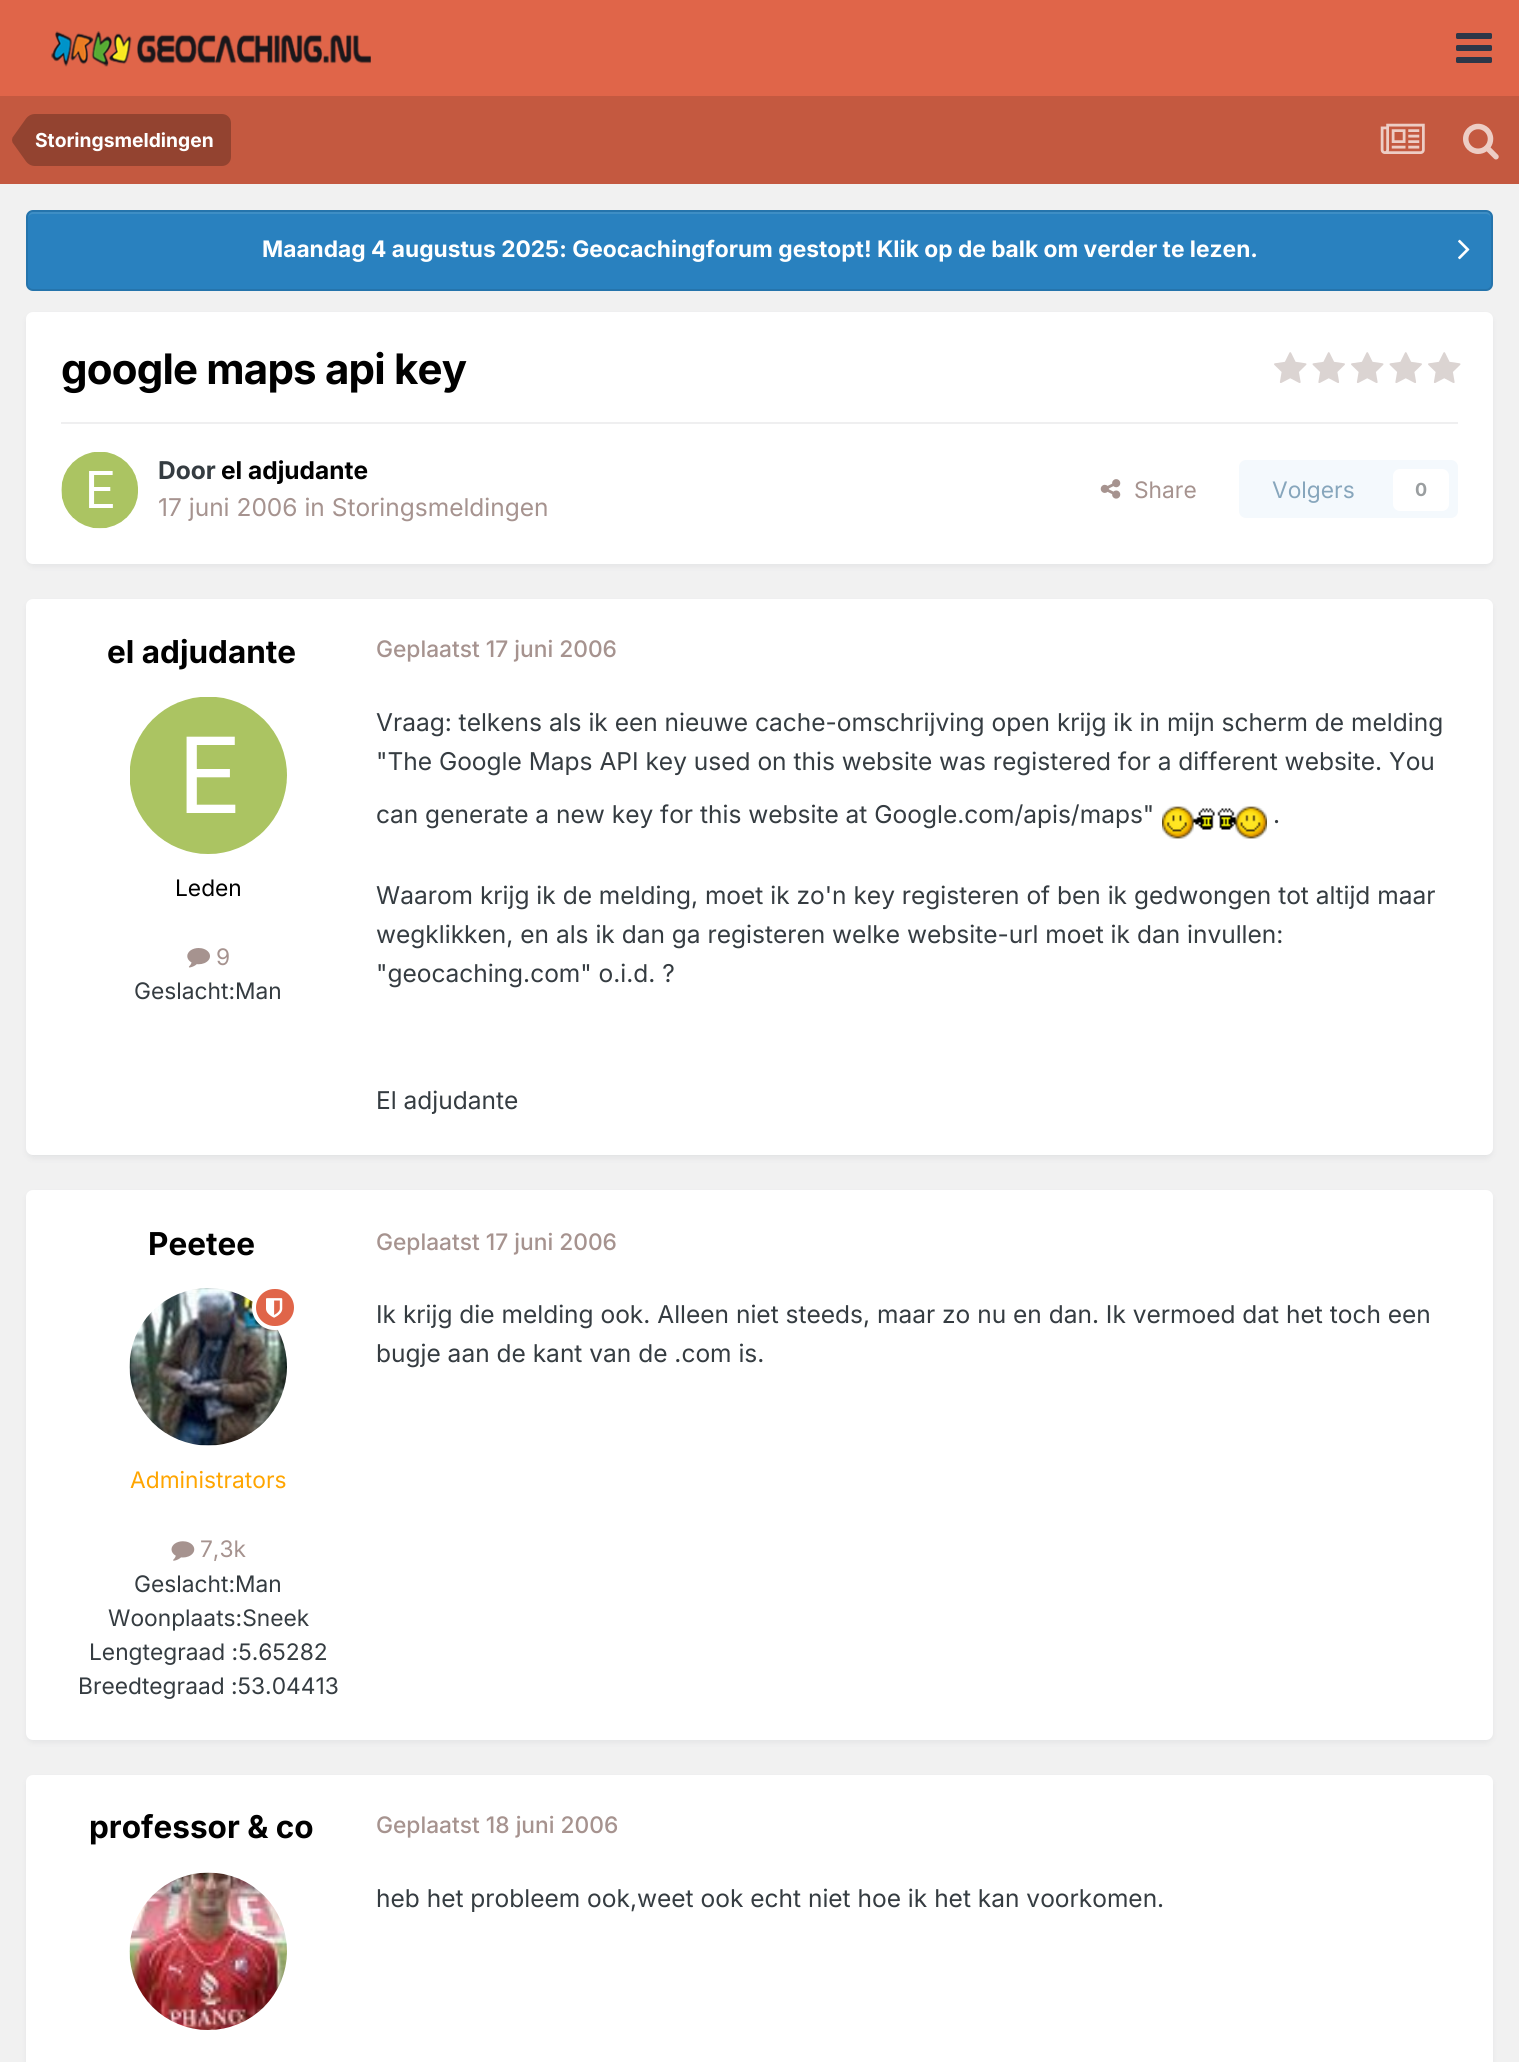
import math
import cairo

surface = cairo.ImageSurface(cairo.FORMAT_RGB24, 1519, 2062)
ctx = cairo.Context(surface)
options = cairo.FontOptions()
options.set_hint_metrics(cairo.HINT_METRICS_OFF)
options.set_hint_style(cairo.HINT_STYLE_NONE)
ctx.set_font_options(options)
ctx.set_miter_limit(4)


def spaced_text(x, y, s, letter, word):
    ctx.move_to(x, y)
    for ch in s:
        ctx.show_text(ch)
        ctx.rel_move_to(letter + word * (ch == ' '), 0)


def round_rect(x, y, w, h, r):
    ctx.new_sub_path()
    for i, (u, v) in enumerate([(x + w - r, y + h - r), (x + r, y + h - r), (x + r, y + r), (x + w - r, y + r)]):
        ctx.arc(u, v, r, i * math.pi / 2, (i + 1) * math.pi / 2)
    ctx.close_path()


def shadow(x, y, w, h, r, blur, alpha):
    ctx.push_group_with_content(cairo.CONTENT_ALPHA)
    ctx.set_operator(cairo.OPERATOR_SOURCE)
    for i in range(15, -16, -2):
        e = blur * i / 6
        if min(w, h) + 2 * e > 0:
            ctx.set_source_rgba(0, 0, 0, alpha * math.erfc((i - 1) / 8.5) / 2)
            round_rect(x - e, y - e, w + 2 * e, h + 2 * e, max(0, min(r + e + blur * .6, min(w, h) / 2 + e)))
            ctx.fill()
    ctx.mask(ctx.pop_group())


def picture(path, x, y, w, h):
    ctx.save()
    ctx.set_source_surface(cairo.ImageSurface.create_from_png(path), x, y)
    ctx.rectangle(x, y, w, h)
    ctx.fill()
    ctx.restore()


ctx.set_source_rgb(0.945, 0.945, 0.945)
ctx.paint()
ctx.set_source_rgb(0.878, 0.396, 0.286)
ctx.rectangle(0, 0, 1519, 96)
ctx.fill()
picture("img1.png", 51, 31, 320, 36)
picture("img2.png", 1456, 33, 36, 30)
ctx.set_source_rgb(0.769, 0.349, 0.251)
ctx.rectangle(0, 96, 1519, 88)
ctx.fill()
ctx.set_source_rgb(0.576, 0.263, 0.188)
ctx.new_path()
ctx.move_to(35, 114)
ctx.line_to(222, 114)
ctx.curve_to(227, 114, 231, 118, 231, 123)
ctx.line_to(231, 157)
ctx.curve_to(231, 162, 227, 166, 222, 166)
ctx.line_to(35, 166)
ctx.close_path()
ctx.fill()
ctx.new_path()
ctx.move_to(35, 140)
ctx.line_to(35, 166)
ctx.curve_to(31, 166, 27.5, 164, 25, 160)
ctx.line_to(12.5, 142.5)
ctx.line_to(12, 140)
ctx.close_path()
ctx.move_to(35, 140)
ctx.line_to(12, 140)
ctx.line_to(12.5, 137.5)
ctx.line_to(25, 120)
ctx.curve_to(27.5, 116, 31, 114, 35, 114)
ctx.close_path()
ctx.fill()
ctx.select_font_face("Inter", cairo.FONT_SLANT_NORMAL, cairo.FONT_WEIGHT_BOLD)
ctx.set_font_size(19.25)
ctx.set_source_rgb(1, 1, 1)
ctx.move_to(35, 147)
ctx.show_text("Storingsmeldingen")
picture("img3.png", 1380, 123, 45, 31)
picture("img4.png", 1463, 123, 36, 37)
ctx.set_source_rgb(0.161, 0.506, 0.749)
round_rect(26, 210, 1467, 81, 7)
ctx.fill()
ctx.set_source_rgb(0.243, 0.557, 0.773)
ctx.new_path()
ctx.move_to(33, 214)
ctx.line_to(1486, 214)
ctx.curve_to(1489, 214, 1491, 216, 1491, 219)
ctx.curve_to(1491, 216, 1490, 212, 1486, 212)
ctx.line_to(33, 212)
ctx.curve_to(29, 212, 28, 216, 28, 219)
ctx.curve_to(28, 216, 30, 214, 33, 214)
ctx.close_path()
ctx.fill()
round_rect(27, 211, 1465, 79, 6)
ctx.set_source_rgba(0, 0, 0, 0.1)
ctx.stroke()
ctx.set_font_size(22.75)
ctx.set_source_rgb(1, 1, 1)
ctx.move_to(262, 257)
ctx.show_text("Maandag 4 augustus 2025: Geocachingforum gestopt! Klik op de balk om verder te lezen.")
picture("img5.png", 1458, 239, 12, 21)
ctx.set_source_rgb(0.176, 0.216, 0.282)
shadow(28, 317, 1463, 248, 5, 3.5, 0.1)
ctx.set_source_rgb(1, 1, 1)
round_rect(26, 312, 1467, 252, 7)
ctx.fill()
ctx.set_font_size(42)
ctx.set_source_rgb(0, 0, 0)
spaced_text(61, 384, "google maps api key", -0.8, 0)
picture("img6.png", 1274, 352, 33, 31)
picture("img7.png", 1312, 352, 33, 31)
picture("img6.png", 1351, 352, 33, 31)
picture("img7.png", 1389, 352, 33, 31)
picture("img6.png", 1428, 352, 33, 31)
ctx.set_source_rgb(0.937, 0.937, 0.941)
ctx.rectangle(61, 422, 1397, 2)
ctx.fill()
picture("img8.png", 61, 452, 77, 77)
ctx.set_font_size(24.5)
ctx.set_source_rgb(0.208, 0.235, 0.255)
ctx.move_to(158, 479)
ctx.show_text("Door")
ctx.set_source_rgb(0, 0, 0)
ctx.move_to(221, 479)
ctx.show_text("el adjudante")
ctx.select_font_face("Inter")
ctx.set_source_rgb(0.651, 0.576, 0.561)
ctx.move_to(158, 516)
ctx.show_text("17 juni 2006 in Storingsmeldingen")
picture("img9.png", 1100, 479, 21, 20)
ctx.set_font_size(22.75)
ctx.move_to(1134, 498)
ctx.show_text("Share")
ctx.set_source_rgb(0.957, 0.976, 0.992)
round_rect(1239, 460, 219, 58, 7)
ctx.fill()
ctx.set_source_rgb(0.529, 0.651, 0.737)
ctx.move_to(1272, 498)
ctx.show_text("Volgers")
ctx.set_source_rgb(1, 1, 1)
round_rect(1393, 469, 56, 42, 7)
ctx.fill()
ctx.select_font_face("Inter", cairo.FONT_SLANT_NORMAL, cairo.FONT_WEIGHT_BOLD)
ctx.set_font_size(18)
ctx.set_source_rgb(0.604, 0.62, 0.627)
ctx.move_to(1415, 496)
ctx.show_text("0")
ctx.set_source_rgb(0.176, 0.216, 0.282)
shadow(28, 604, 1463, 553, 5, 3.5, 0.1)
ctx.set_source_rgb(1, 1, 1)
round_rect(26, 599, 1467, 556, 7)
ctx.fill()
ctx.set_font_size(31.5)
ctx.set_source_rgb(0, 0, 0)
ctx.move_to(107, 663)
ctx.show_text("el adjudante")
picture("img10.png", 130, 697, 157, 157)
ctx.select_font_face("Inter")
ctx.set_font_size(22.75)
ctx.move_to(175, 896)
ctx.show_text("Leden")
picture("img11.png", 187, 948, 23, 20)
ctx.set_source_rgb(0.651, 0.576, 0.561)
ctx.move_to(216, 965)
ctx.show_text("9")
ctx.set_source_rgb(0.208, 0.235, 0.255)
ctx.move_to(134, 999)
ctx.show_text("Geslacht:Man")
ctx.select_font_face("Inter Medium")
ctx.set_source_rgb(0.651, 0.576, 0.561)
ctx.move_to(376, 657)
ctx.show_text("Geplaatst 17 juni 2006")
ctx.select_font_face("Inter")
ctx.set_font_size(24.5)
ctx.set_source_rgb(0.208, 0.235, 0.255)
ctx.move_to(376, 731)
ctx.show_text("Vraag: telkens als ik een nieuwe cache-omschrijving open krijg ik in mijn scherm de melding")
ctx.move_to(376, 770)
ctx.show_text("\"The Google Maps API key used on this website was registered for a different website. You")
ctx.move_to(376, 823)
ctx.show_text("can generate a new key for this website at Google.com/apis/maps\"")
picture("img12.png", 1162, 806, 105, 33)
ctx.move_to(1273, 823)
ctx.show_text(".")
ctx.move_to(376, 904)
ctx.show_text("Waarom krijg ik de melding, moet ik zo'n key registeren of ben ik gedwongen tot altijd maar")
ctx.move_to(376, 943)
ctx.show_text("wegklikken, en als ik dan ga registeren welke website-url moet ik dan invullen:")
ctx.move_to(376, 982)
ctx.show_text("\"geocaching.com\" o.i.d. ?")
ctx.move_to(376, 1109)
ctx.show_text("El adjudante")
ctx.set_source_rgb(0.176, 0.216, 0.282)
shadow(28, 1195, 1463, 546, 5, 3.5, 0.1)
ctx.set_source_rgb(1, 1, 1)
round_rect(26, 1190, 1467, 550, 7)
ctx.fill()
ctx.select_font_face("Inter", cairo.FONT_SLANT_NORMAL, cairo.FONT_WEIGHT_BOLD)
ctx.set_font_size(31.5)
ctx.set_source_rgb(0, 0, 0)
ctx.move_to(148, 1255)
ctx.show_text("Peetee")
picture("img14.png", 129, 1288, 158, 158)
ctx.set_source_rgb(0.878, 0.396, 0.286)
round_rect(254, 1287, 42, 41, 20.5)
ctx.fill_preserve()
ctx.set_source_rgb(1, 1, 1)
ctx.set_line_width(4)
ctx.stroke()
picture("img13.png", 266, 1298, 17, 20)
ctx.select_font_face("Inter")
ctx.set_font_size(22.75)
ctx.set_source_rgb(1, 0.647, 0)
ctx.move_to(130, 1488)
ctx.show_text("Administrators")
picture("img15.png", 171, 1541, 24, 20)
ctx.set_source_rgb(0.651, 0.576, 0.561)
ctx.move_to(200, 1557)
ctx.show_text("7,3k")
ctx.set_source_rgb(0.208, 0.235, 0.255)
ctx.move_to(134, 1592)
ctx.show_text("Geslacht:Man")
ctx.move_to(108, 1626)
ctx.show_text("Woonplaats:Sneek")
ctx.move_to(89, 1660)
ctx.show_text("Lengtegraad :5.65282")
ctx.move_to(78, 1694)
ctx.show_text("Breedtegraad :53.04413")
ctx.select_font_face("Inter Medium")
ctx.set_source_rgb(0.651, 0.576, 0.561)
ctx.move_to(376, 1250)
ctx.show_text("Geplaatst 17 juni 2006")
ctx.select_font_face("Inter")
ctx.set_font_size(24.5)
ctx.set_source_rgb(0.208, 0.235, 0.255)
ctx.move_to(376, 1323)
ctx.show_text("Ik krijg die melding ook. Alleen niet steeds, maar zo nu en dan. Ik vermoed dat het toch een")
ctx.move_to(376, 1362)
ctx.show_text("bugje aan de kant van de .com is.")
ctx.set_source_rgb(0.176, 0.216, 0.282)
shadow(28, 1780, 1463, 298, 5, 3.5, 0.1)
ctx.set_source_rgb(1, 1, 1)
round_rect(26, 1775, 1467, 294, 7)
ctx.fill()
ctx.select_font_face("Inter", cairo.FONT_SLANT_NORMAL, cairo.FONT_WEIGHT_BOLD)
ctx.set_font_size(31.5)
ctx.set_source_rgb(0, 0, 0)
ctx.move_to(89, 1838)
ctx.show_text("professor & co")
picture("img16.png", 129, 1872, 158, 158)
ctx.select_font_face("Inter Medium")
ctx.set_font_size(22.75)
ctx.set_source_rgb(0.651, 0.576, 0.561)
ctx.move_to(376, 1833)
ctx.show_text("Geplaatst 18 juni 2006")
ctx.select_font_face("Inter")
ctx.set_font_size(24.5)
ctx.set_source_rgb(0.208, 0.235, 0.255)
ctx.move_to(376, 1907)
ctx.show_text("heb het probleem ook,weet ook echt niet hoe ik het kan voorkomen.")
surface.write_to_png("page.png")
